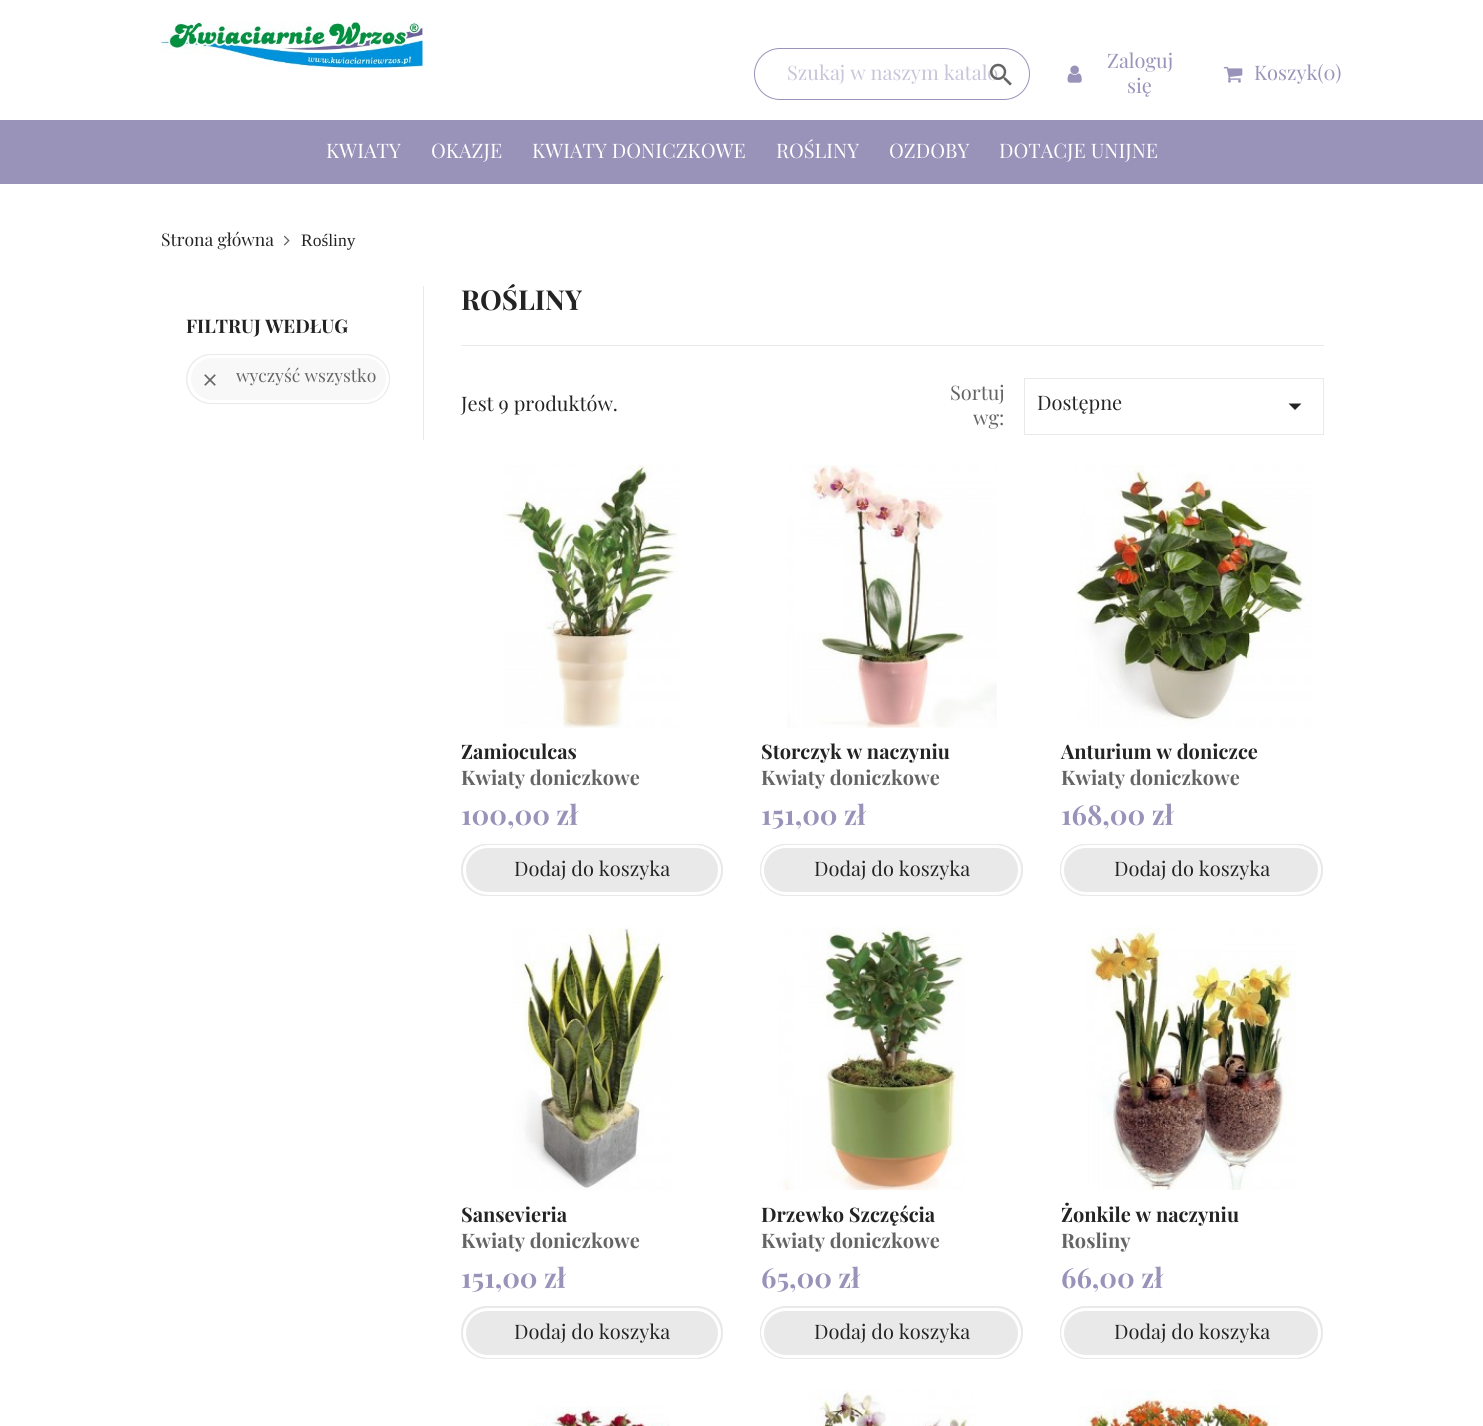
import math
import cairo

surface = cairo.ImageSurface(cairo.FORMAT_RGB24, 1483, 1426)
ctx = cairo.Context(surface)
options = cairo.FontOptions()
options.set_hint_metrics(cairo.HINT_METRICS_OFF)
options.set_hint_style(cairo.HINT_STYLE_NONE)
ctx.set_font_options(options)
ctx.set_miter_limit(4)


def round_rect(x, y, w, h, r):
    ctx.new_sub_path()
    for i, (u, v) in enumerate([(x + w - r, y + h - r), (x + r, y + h - r), (x + r, y + r), (x + w - r, y + r)]):
        ctx.arc(u, v, r, i * math.pi / 2, (i + 1) * math.pi / 2)
    ctx.close_path()


def picture(path, x, y, w, h):
    ctx.save()
    ctx.set_source_surface(cairo.ImageSurface.create_from_png(path), x, y)
    ctx.rectangle(x, y, w, h)
    ctx.fill()
    ctx.restore()


ctx.set_source_rgb(1, 1, 1)
ctx.paint()
picture("img1.png", 161, 22, 262, 46)
round_rect(754.5, 48.5, 275, 51, 25.5)
ctx.set_source_rgb(0.6, 0.573, 0.725)
ctx.set_line_width(1)
ctx.stroke()
ctx.select_font_face("Playfair Display")
ctx.set_font_size(20)
ctx.set_source_rgb(0.784, 0.769, 0.851)
ctx.move_to(787, 80)
ctx.show_text("Szukaj w naszym katalo")
picture("img2.png", 990, 63, 22, 23)
picture("img3.png", 1067, 65, 15, 18)
ctx.set_source_rgb(0.6, 0.573, 0.725)
ctx.move_to(1107, 68)
ctx.show_text("Zaloguj")
ctx.move_to(1127, 93)
ctx.show_text("się")
picture("img4.png", 1223, 66, 20, 17)
ctx.move_to(1254, 80)
ctx.show_text("Koszyk(0)")
ctx.rectangle(0, 120, 1483, 64)
ctx.fill()
ctx.set_source_rgb(1, 1, 1)
ctx.move_to(326, 158)
ctx.show_text("KWIATY")
ctx.move_to(431, 158)
ctx.show_text("OKAZJE")
ctx.move_to(532, 158)
ctx.show_text("KWIATY DONICZKOWE")
ctx.move_to(776, 158)
ctx.show_text("ROŚLINY")
ctx.move_to(889, 158)
ctx.show_text("OZDOBY")
ctx.move_to(999, 158)
ctx.show_text("DOTACJE UNIJNE")
ctx.set_font_size(17.5)
ctx.set_source_rgb(0.137, 0.137, 0.137)
ctx.move_to(161, 246)
ctx.show_text("Strona główna")
picture("img5.png", 283, 235, 7, 11)
ctx.select_font_face("Liberation Serif")
ctx.move_to(301, 246)
ctx.show_text("Rośliny")
ctx.set_source_rgb(0.914, 0.914, 0.914)
ctx.rectangle(423, 286, 1, 154)
ctx.fill()
ctx.select_font_face("Playfair Display", cairo.FONT_SLANT_NORMAL, cairo.FONT_WEIGHT_BOLD)
ctx.set_font_size(18.75)
ctx.set_source_rgb(0.137, 0.137, 0.137)
ctx.move_to(186, 333)
ctx.show_text("FILTRUJ WEDŁUG")
ctx.set_source_rgb(0.969, 0.969, 0.969)
round_rect(186, 354, 204, 50, 25)
ctx.fill()
round_rect(189.5, 356.5, 198, 45, 22.5)
ctx.set_source_rgb(1, 1, 1)
ctx.set_line_width(3)
ctx.stroke()
round_rect(186.5, 354.5, 203, 49, 24.5)
ctx.set_source_rgb(0.914, 0.914, 0.914)
ctx.set_line_width(1)
ctx.stroke()
picture("img6.png", 204, 374, 12, 12)
ctx.select_font_face("Playfair Display")
ctx.set_font_size(17.5)
ctx.set_source_rgb(0.392, 0.392, 0.392)
ctx.move_to(236, 382)
ctx.show_text("wyczyść wszystko")
ctx.set_source_rgb(0.914, 0.914, 0.914)
ctx.rectangle(461, 345, 863, 1)
ctx.fill()
ctx.select_font_face("Playfair Display", cairo.FONT_SLANT_NORMAL, cairo.FONT_WEIGHT_BOLD)
ctx.set_font_size(27.5)
ctx.set_source_rgb(0.137, 0.137, 0.137)
ctx.move_to(461, 310)
ctx.show_text("ROŚLINY")
ctx.select_font_face("Playfair Display")
ctx.set_font_size(20)
ctx.move_to(461, 411)
ctx.show_text("Jest 9 produktów.")
ctx.set_source_rgb(0.392, 0.392, 0.392)
ctx.move_to(950, 400)
ctx.show_text("Sortuj")
ctx.move_to(973, 425)
ctx.show_text("wg:")
ctx.rectangle(1024.5, 378.5, 299, 56)
ctx.set_source_rgb(0.914, 0.914, 0.914)
ctx.stroke()
ctx.set_source_rgb(0.137, 0.137, 0.137)
ctx.move_to(1037, 410)
ctx.show_text("Dostępne")
ctx.new_path()
ctx.move_to(1288.5, 403.5)
ctx.line_to(1301.5, 403.5)
ctx.line_to(1295, 410)
ctx.close_path()
ctx.fill()
picture("img7.png", 503, 465, 176, 263)
ctx.select_font_face("Playfair Display", cairo.FONT_SLANT_NORMAL, cairo.FONT_WEIGHT_BOLD)
ctx.move_to(461, 759)
ctx.show_text("Zamioculcas")
ctx.set_source_rgb(0.392, 0.392, 0.392)
ctx.move_to(461, 785)
ctx.show_text("Kwiaty doniczkowe")
ctx.set_font_size(27.5)
ctx.set_source_rgb(0.6, 0.573, 0.725)
ctx.move_to(461, 825)
ctx.show_text("100,00 zł")
ctx.set_source_rgb(0.914, 0.914, 0.914)
round_rect(461, 844, 262, 52, 26)
ctx.fill()
round_rect(464.5, 846.5, 255, 47, 23.5)
ctx.set_source_rgb(1, 1, 1)
ctx.set_line_width(3)
ctx.stroke()
round_rect(461.5, 844.5, 261, 51, 25.5)
ctx.set_source_rgb(0.914, 0.914, 0.914)
ctx.set_line_width(1)
ctx.stroke()
ctx.select_font_face("Playfair Display")
ctx.set_font_size(20)
ctx.set_source_rgb(0.137, 0.137, 0.137)
ctx.move_to(514, 876)
ctx.show_text("Dodaj do koszyka")
picture("img8.png", 787, 465, 210, 263)
ctx.select_font_face("Playfair Display", cairo.FONT_SLANT_NORMAL, cairo.FONT_WEIGHT_BOLD)
ctx.move_to(761, 759)
ctx.show_text("Storczyk w naczyniu")
ctx.set_source_rgb(0.392, 0.392, 0.392)
ctx.move_to(761, 785)
ctx.show_text("Kwiaty doniczkowe")
ctx.set_font_size(27.5)
ctx.set_source_rgb(0.6, 0.573, 0.725)
ctx.move_to(761, 825)
ctx.show_text("151,00 zł")
ctx.set_source_rgb(0.914, 0.914, 0.914)
round_rect(760, 844, 263, 52, 26)
ctx.fill()
round_rect(762.5, 846.5, 257, 47, 23.5)
ctx.set_source_rgb(1, 1, 1)
ctx.set_line_width(3)
ctx.stroke()
round_rect(760.5, 844.5, 262, 51, 25.5)
ctx.set_source_rgb(0.914, 0.914, 0.914)
ctx.set_line_width(1)
ctx.stroke()
ctx.select_font_face("Playfair Display")
ctx.set_font_size(20)
ctx.set_source_rgb(0.137, 0.137, 0.137)
ctx.move_to(814, 876)
ctx.show_text("Dodaj do koszyka")
picture("img9.png", 1075, 465, 237, 262)
ctx.select_font_face("Playfair Display", cairo.FONT_SLANT_NORMAL, cairo.FONT_WEIGHT_BOLD)
ctx.move_to(1061, 759)
ctx.show_text("Anturium w doniczce")
ctx.set_source_rgb(0.392, 0.392, 0.392)
ctx.move_to(1061, 785)
ctx.show_text("Kwiaty doniczkowe")
ctx.set_font_size(27.5)
ctx.set_source_rgb(0.6, 0.573, 0.725)
ctx.move_to(1061, 825)
ctx.show_text("168,00 zł")
ctx.set_source_rgb(0.914, 0.914, 0.914)
round_rect(1060, 844, 263, 52, 26)
ctx.fill()
round_rect(1062.5, 846.5, 257, 47, 23.5)
ctx.set_source_rgb(1, 1, 1)
ctx.set_line_width(3)
ctx.stroke()
round_rect(1060.5, 844.5, 262, 51, 25.5)
ctx.set_source_rgb(0.914, 0.914, 0.914)
ctx.set_line_width(1)
ctx.stroke()
ctx.select_font_face("Playfair Display")
ctx.set_font_size(20)
ctx.set_source_rgb(0.137, 0.137, 0.137)
ctx.move_to(1114, 876)
ctx.show_text("Dodaj do koszyka")
picture("img10.png", 513, 927, 157, 263)
ctx.select_font_face("Playfair Display", cairo.FONT_SLANT_NORMAL, cairo.FONT_WEIGHT_BOLD)
ctx.move_to(461, 1222)
ctx.show_text("Sansevieria")
ctx.set_source_rgb(0.392, 0.392, 0.392)
ctx.move_to(461, 1248)
ctx.show_text("Kwiaty doniczkowe")
ctx.set_font_size(27.5)
ctx.set_source_rgb(0.6, 0.573, 0.725)
ctx.move_to(461, 1288)
ctx.show_text("151,00 zł")
ctx.set_source_rgb(0.914, 0.914, 0.914)
round_rect(461, 1306, 262, 53, 26.5)
ctx.fill()
round_rect(464.5, 1309.5, 255, 47, 23.5)
ctx.set_source_rgb(1, 1, 1)
ctx.set_line_width(3)
ctx.stroke()
round_rect(461.5, 1306.5, 261, 52, 26)
ctx.set_source_rgb(0.914, 0.914, 0.914)
ctx.set_line_width(1)
ctx.stroke()
ctx.select_font_face("Playfair Display")
ctx.set_font_size(20)
ctx.set_source_rgb(0.137, 0.137, 0.137)
ctx.move_to(514, 1339)
ctx.show_text("Dodaj do koszyka")
picture("img11.png", 778, 927, 187, 263)
ctx.select_font_face("Playfair Display", cairo.FONT_SLANT_NORMAL, cairo.FONT_WEIGHT_BOLD)
ctx.move_to(761, 1222)
ctx.show_text("Drzewko Szczęścia")
ctx.set_source_rgb(0.392, 0.392, 0.392)
ctx.move_to(761, 1248)
ctx.show_text("Kwiaty doniczkowe")
ctx.set_font_size(27.5)
ctx.set_source_rgb(0.6, 0.573, 0.725)
ctx.move_to(761, 1288)
ctx.show_text("65,00 zł")
ctx.set_source_rgb(0.914, 0.914, 0.914)
round_rect(760, 1306, 263, 53, 26.5)
ctx.fill()
round_rect(762.5, 1309.5, 257, 47, 23.5)
ctx.set_source_rgb(1, 1, 1)
ctx.set_line_width(3)
ctx.stroke()
round_rect(760.5, 1306.5, 262, 52, 26)
ctx.set_source_rgb(0.914, 0.914, 0.914)
ctx.set_line_width(1)
ctx.stroke()
ctx.select_font_face("Playfair Display")
ctx.set_font_size(20)
ctx.set_source_rgb(0.137, 0.137, 0.137)
ctx.move_to(814, 1339)
ctx.show_text("Dodaj do koszyka")
picture("img12.png", 1086, 927, 210, 263)
ctx.select_font_face("Playfair Display", cairo.FONT_SLANT_NORMAL, cairo.FONT_WEIGHT_BOLD)
ctx.move_to(1061, 1222)
ctx.show_text("Żonkile w naczyniu")
ctx.set_source_rgb(0.392, 0.392, 0.392)
ctx.move_to(1061, 1248)
ctx.show_text("Rosliny")
ctx.set_font_size(27.5)
ctx.set_source_rgb(0.6, 0.573, 0.725)
ctx.move_to(1061, 1288)
ctx.show_text("66,00 zł")
ctx.set_source_rgb(0.914, 0.914, 0.914)
round_rect(1060, 1306, 263, 53, 26.5)
ctx.fill()
round_rect(1062.5, 1309.5, 257, 47, 23.5)
ctx.set_source_rgb(1, 1, 1)
ctx.set_line_width(3)
ctx.stroke()
round_rect(1060.5, 1306.5, 262, 52, 26)
ctx.set_source_rgb(0.914, 0.914, 0.914)
ctx.set_line_width(1)
ctx.stroke()
ctx.select_font_face("Playfair Display")
ctx.set_font_size(20)
ctx.set_source_rgb(0.137, 0.137, 0.137)
ctx.move_to(1114, 1339)
ctx.show_text("Dodaj do koszyka")
picture("img13.png", 528, 1406, 142, 20)
picture("img14.png", 810, 1390, 165, 36)
picture("img15.png", 1078, 1390, 200, 36)
surface.write_to_png("page.png")
